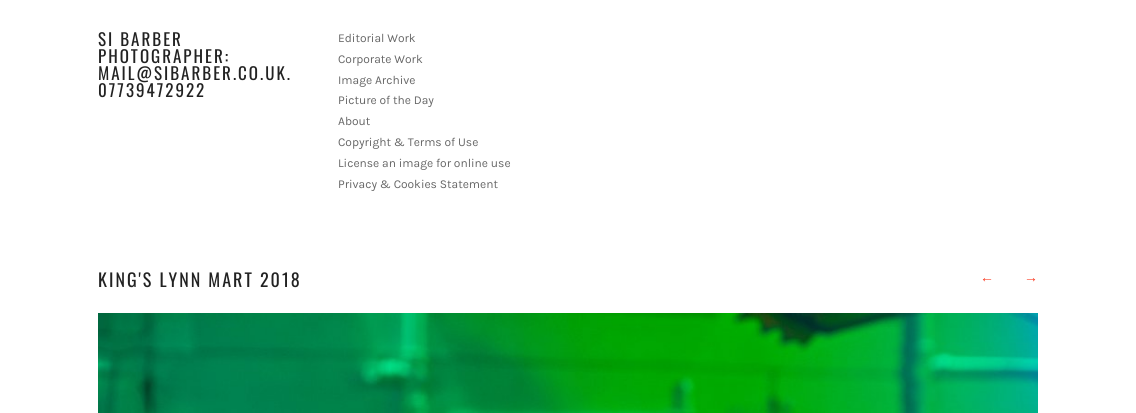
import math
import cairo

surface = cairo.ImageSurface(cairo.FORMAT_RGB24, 1136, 413)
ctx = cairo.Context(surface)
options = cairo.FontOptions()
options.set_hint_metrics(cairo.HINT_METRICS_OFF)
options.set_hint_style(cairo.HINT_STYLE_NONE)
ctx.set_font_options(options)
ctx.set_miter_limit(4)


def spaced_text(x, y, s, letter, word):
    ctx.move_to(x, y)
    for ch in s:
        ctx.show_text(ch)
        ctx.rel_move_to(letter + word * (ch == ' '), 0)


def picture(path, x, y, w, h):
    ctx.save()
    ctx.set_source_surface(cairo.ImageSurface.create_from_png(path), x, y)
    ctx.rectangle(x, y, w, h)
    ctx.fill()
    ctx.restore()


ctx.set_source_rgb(1, 1, 1)
ctx.paint()
ctx.select_font_face("Oswald")
ctx.set_font_size(17)
ctx.set_source_rgb(0.133, 0.133, 0.133)
spaced_text(98, 46, "SI BARBER", 2, 0)
spaced_text(98, 63, "PHOTOGRAPHER:", 2, 0)
spaced_text(98, 80, "MAIL@SIBARBER.CO.UK.", 2, 0)
spaced_text(98, 97, "07739472922", 2, 0)
ctx.select_font_face("Karla")
ctx.set_font_size(12)
ctx.set_source_rgb(0.4, 0.4, 0.4)
ctx.move_to(338, 42)
ctx.show_text("Editorial Work")
ctx.move_to(338, 63)
ctx.show_text("Corporate Work")
ctx.move_to(338, 84)
ctx.show_text("Image Archive")
ctx.move_to(338, 104)
ctx.show_text("Picture of the Day")
ctx.move_to(338, 125)
ctx.show_text("About")
ctx.move_to(338, 146)
ctx.show_text("Copyright & Terms of Use")
ctx.move_to(338, 167)
ctx.show_text("License an image for online use")
ctx.move_to(338, 188)
ctx.show_text("Privacy & Cookies Statement")
ctx.select_font_face("Oswald")
ctx.set_font_size(18)
ctx.set_source_rgb(0.133, 0.133, 0.133)
spaced_text(98, 287, "KING'S LYNN MART 2018", 2, 0)
ctx.select_font_face("Liberation Sans")
ctx.set_font_size(14)
ctx.set_source_rgb(0.98, 0.235, 0.141)
ctx.move_to(980, 282)
ctx.show_text("←")
ctx.move_to(1024, 282)
ctx.show_text("→")
picture("img1.png", 98, 313, 940, 100)
surface.write_to_png("page.png")
